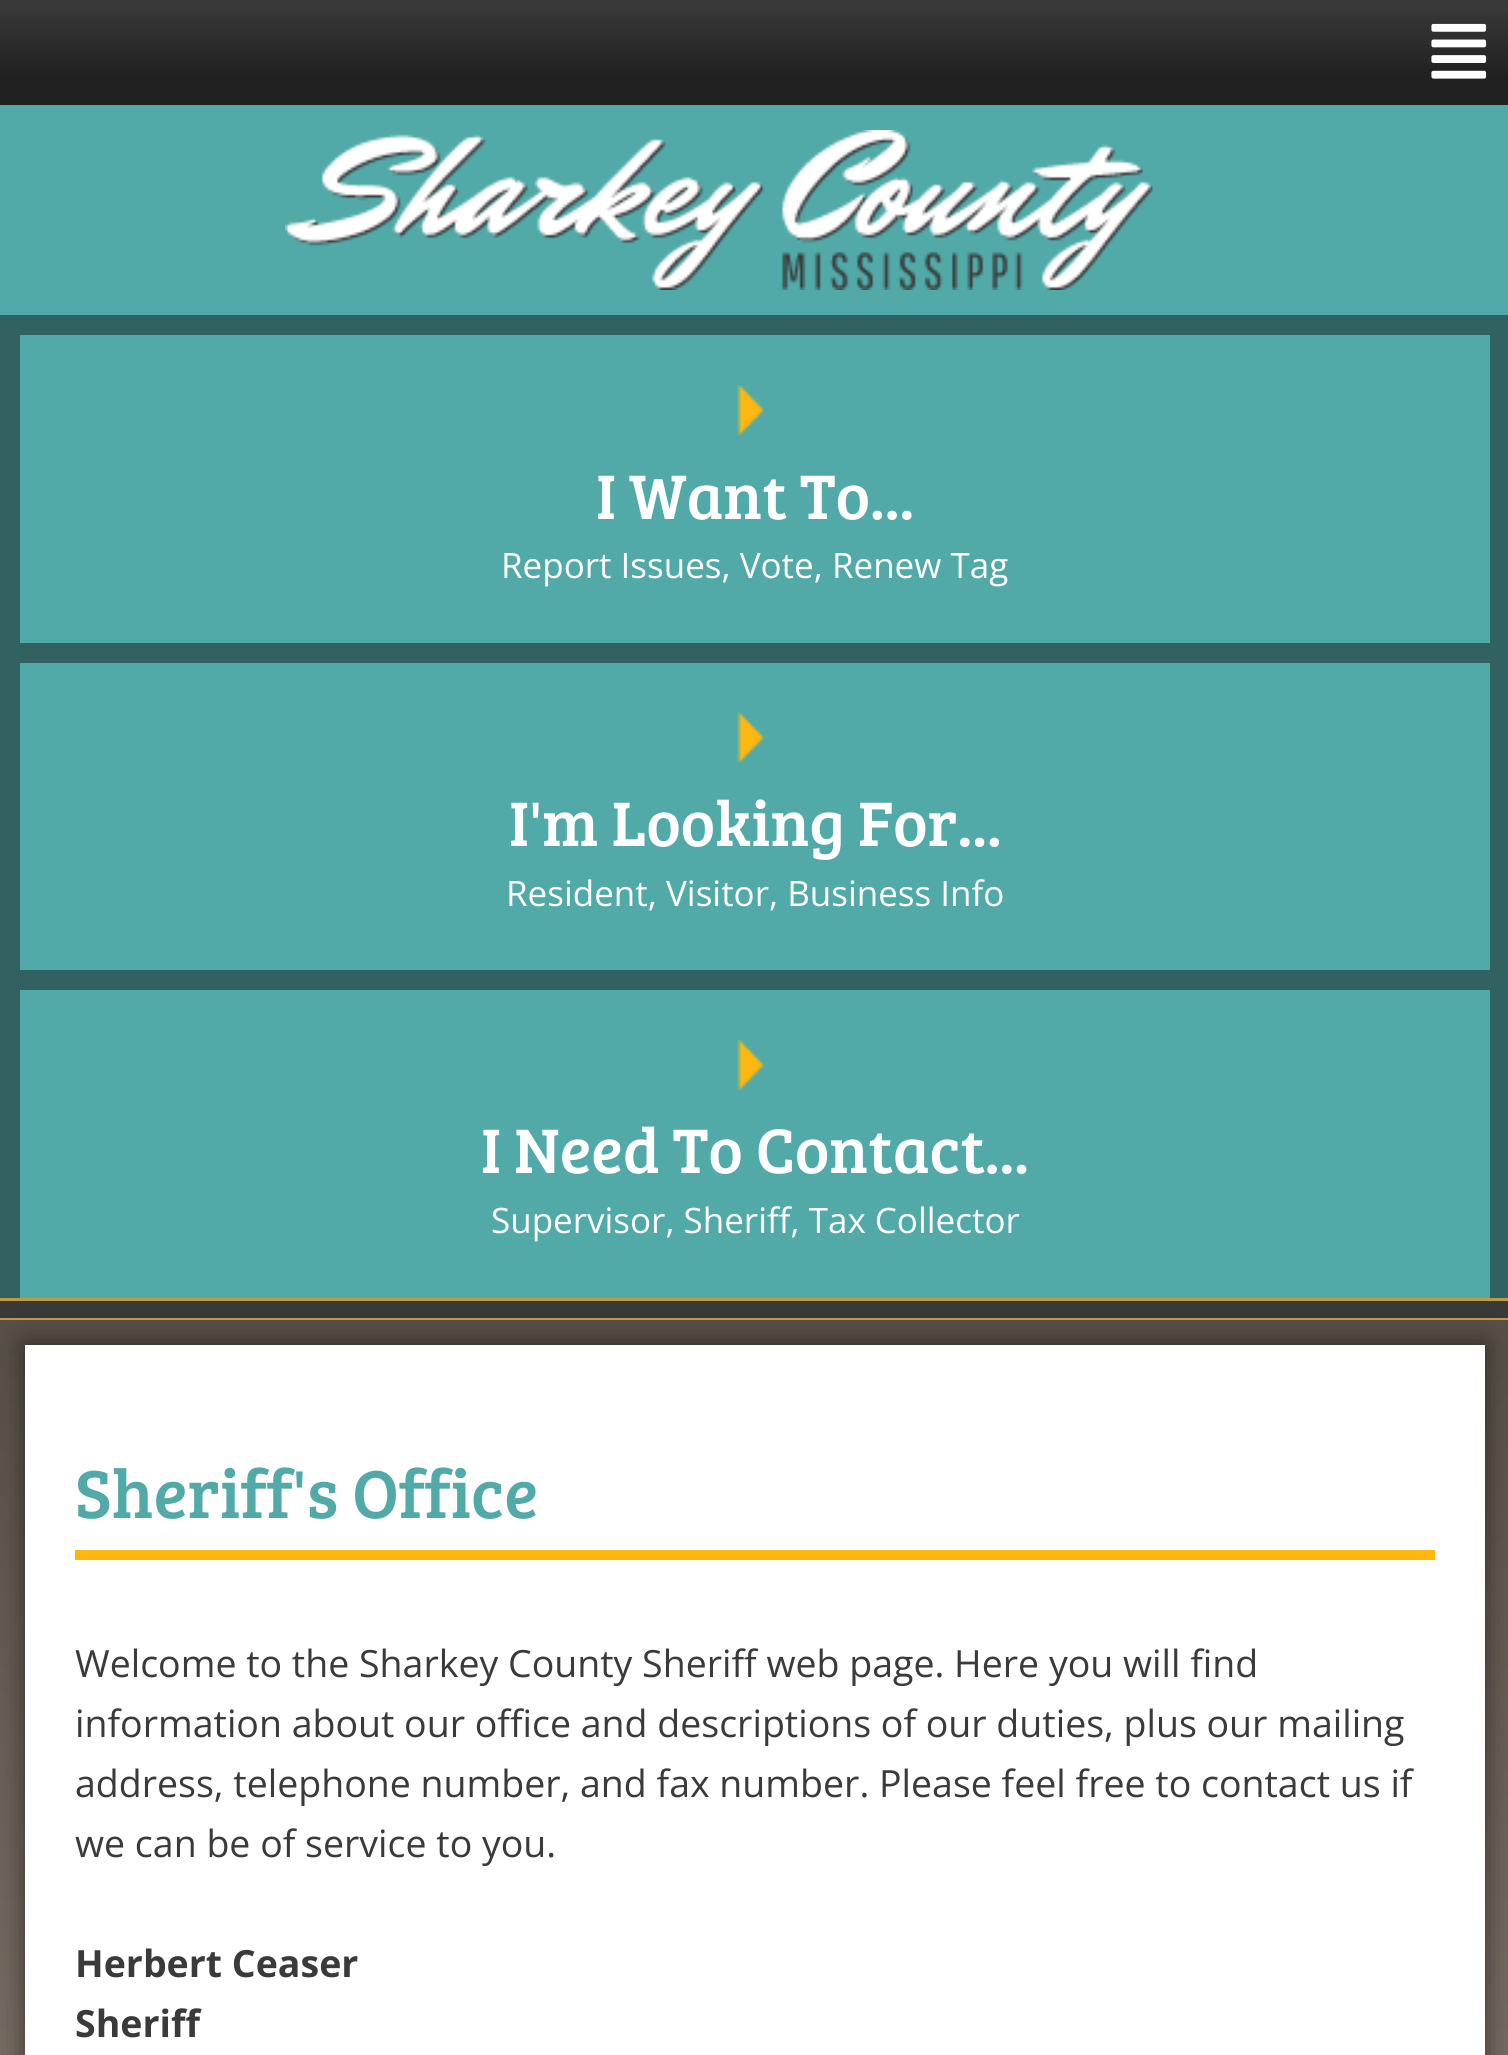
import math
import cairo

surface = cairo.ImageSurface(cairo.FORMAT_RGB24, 1508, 2055)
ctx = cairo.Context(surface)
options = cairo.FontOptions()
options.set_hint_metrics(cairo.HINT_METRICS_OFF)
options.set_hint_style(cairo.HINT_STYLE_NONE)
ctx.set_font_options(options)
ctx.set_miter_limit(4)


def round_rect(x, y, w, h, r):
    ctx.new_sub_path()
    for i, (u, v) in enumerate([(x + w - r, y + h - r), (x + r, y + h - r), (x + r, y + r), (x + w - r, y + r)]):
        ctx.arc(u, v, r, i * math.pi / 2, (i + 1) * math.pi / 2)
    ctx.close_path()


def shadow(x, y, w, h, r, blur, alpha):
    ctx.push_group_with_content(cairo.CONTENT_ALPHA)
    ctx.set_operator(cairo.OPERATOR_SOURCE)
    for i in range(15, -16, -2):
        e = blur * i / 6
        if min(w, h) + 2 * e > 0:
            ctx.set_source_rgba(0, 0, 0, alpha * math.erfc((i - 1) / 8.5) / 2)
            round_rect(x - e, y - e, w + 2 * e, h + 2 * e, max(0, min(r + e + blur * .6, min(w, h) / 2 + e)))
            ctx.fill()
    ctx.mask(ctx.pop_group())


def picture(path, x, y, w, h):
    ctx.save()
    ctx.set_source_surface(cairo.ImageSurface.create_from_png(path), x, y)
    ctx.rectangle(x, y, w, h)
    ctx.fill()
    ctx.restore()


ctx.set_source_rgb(0.224, 0.224, 0.224)
ctx.paint()
gradient = cairo.LinearGradient(755, 0, 755, 105)
gradient.add_color_stop_rgba(0, 0.227, 0.227, 0.227, 1)
gradient.add_color_stop_rgba(0.73, 0.129, 0.129, 0.129, 1)
ctx.set_source(gradient)
ctx.rectangle(0, 11, 1508, 94)
ctx.fill()
picture("img1.png", 1431, 23, 56, 56)
ctx.set_source_rgb(0.318, 0.667, 0.659)
ctx.rectangle(0, 105, 1508, 1193)
ctx.fill()
picture("img2.png", 285, 130, 868, 160)
ctx.rectangle(10, 325, 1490, 328)
ctx.set_source_rgb(0.192, 0.38, 0.376)
ctx.set_line_width(20)
ctx.stroke()
picture("img3.png", 737, 385, 28, 50)
ctx.select_font_face("Bree Serif")
ctx.set_font_size(65)
ctx.set_source_rgb(1, 1, 1)
ctx.move_to(596, 519)
ctx.show_text("I Want To...")
ctx.select_font_face("Open Sans")
ctx.set_font_size(35)
ctx.move_to(501, 578)
ctx.show_text("Report Issues, Vote, Renew Tag")
ctx.set_source_rgb(0.192, 0.38, 0.376)
ctx.rectangle(1490, 663, 18, 307)
ctx.fill()
ctx.rectangle(20, 970, 1488, 20)
ctx.fill()
ctx.rectangle(0, 663, 20, 635)
ctx.fill()
picture("img4.png", 737, 712, 28, 51)
ctx.select_font_face("Bree Serif")
ctx.set_font_size(65)
ctx.set_source_rgb(1, 1, 1)
ctx.move_to(509, 846)
ctx.show_text("I'm Looking For...")
ctx.select_font_face("Open Sans")
ctx.set_font_size(35)
ctx.move_to(506, 906)
ctx.show_text("Resident, Visitor, Business Info")
ctx.set_source_rgb(0.192, 0.38, 0.376)
ctx.rectangle(1490, 990, 18, 308)
ctx.fill()
picture("img3.png", 737, 1040, 28, 50)
ctx.select_font_face("Bree Serif")
ctx.set_font_size(65)
ctx.set_source_rgb(1, 1, 1)
ctx.move_to(481, 1173)
ctx.show_text("I Need To Contact...")
ctx.select_font_face("Open Sans")
ctx.set_font_size(35)
ctx.move_to(491, 1233)
ctx.show_text("Supervisor, Sheriff, Tax Collector")
ctx.set_source_rgb(0.753, 0.608, 0.263)
ctx.rectangle(0, 1298, 1508, 3)
ctx.fill()
ctx.rectangle(0, 1318, 1508, 2)
ctx.fill()
gradient = cairo.LinearGradient(755, 1320, 755, 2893)
gradient.add_color_stop_rgba(0, 0.337, 0.306, 0.278, 1)
gradient.add_color_stop_rgba(1, 0.6, 0.545, 0.494, 1)
ctx.set_source(gradient)
ctx.rectangle(0, 1320, 1508, 735)
ctx.fill()
ctx.set_source_rgb(0, 0, 0)
shadow(25, 1345, 1460, 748, 0, 12.5, 0.5)
ctx.set_source_rgb(1, 1, 1)
ctx.rectangle(25, 1345, 1460, 710)
ctx.fill()
ctx.select_font_face("Bree Serif")
ctx.set_font_size(70)
ctx.set_source_rgb(0.318, 0.667, 0.659)
ctx.move_to(75, 1518)
ctx.show_text("Sheriff's Office")
ctx.set_source_rgb(0.988, 0.718, 0.067)
ctx.rectangle(75, 1550, 1360, 10)
ctx.fill()
ctx.select_font_face("Open Sans")
ctx.set_font_size(37.5)
ctx.set_source_rgb(0.227, 0.227, 0.227)
ctx.move_to(75, 1677)
ctx.show_text("Welcome to the Sharkey County Sheriff web page. Here you will find")
ctx.move_to(75, 1737)
ctx.show_text("information about our office and descriptions of our duties, plus our mailing")
ctx.move_to(75, 1797)
ctx.show_text("address, telephone number, and fax number. Please feel free to contact us if")
ctx.move_to(75, 1857)
ctx.show_text("we can be of service to you.")
ctx.select_font_face("Open Sans", cairo.FONT_SLANT_NORMAL, cairo.FONT_WEIGHT_BOLD)
ctx.move_to(75, 1977)
ctx.show_text("Herbert Ceaser")
ctx.move_to(75, 2037)
ctx.show_text("Sheriff")
surface.write_to_png("page.png")
